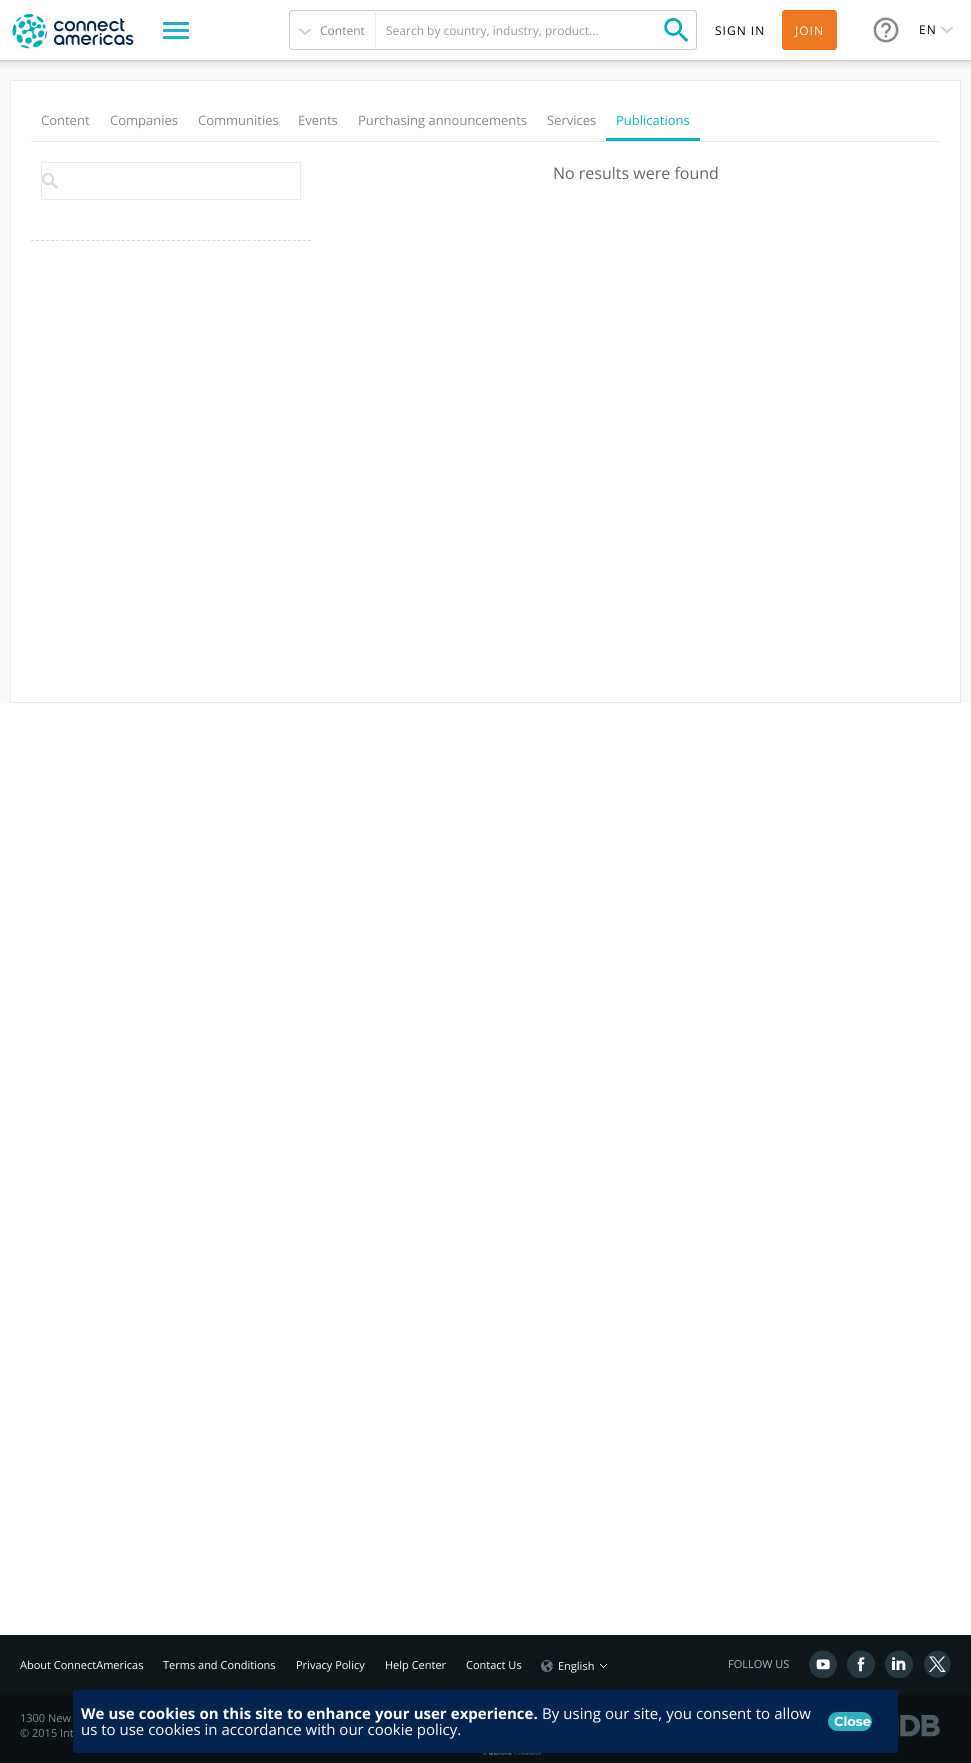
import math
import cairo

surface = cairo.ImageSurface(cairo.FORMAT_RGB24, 971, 1763)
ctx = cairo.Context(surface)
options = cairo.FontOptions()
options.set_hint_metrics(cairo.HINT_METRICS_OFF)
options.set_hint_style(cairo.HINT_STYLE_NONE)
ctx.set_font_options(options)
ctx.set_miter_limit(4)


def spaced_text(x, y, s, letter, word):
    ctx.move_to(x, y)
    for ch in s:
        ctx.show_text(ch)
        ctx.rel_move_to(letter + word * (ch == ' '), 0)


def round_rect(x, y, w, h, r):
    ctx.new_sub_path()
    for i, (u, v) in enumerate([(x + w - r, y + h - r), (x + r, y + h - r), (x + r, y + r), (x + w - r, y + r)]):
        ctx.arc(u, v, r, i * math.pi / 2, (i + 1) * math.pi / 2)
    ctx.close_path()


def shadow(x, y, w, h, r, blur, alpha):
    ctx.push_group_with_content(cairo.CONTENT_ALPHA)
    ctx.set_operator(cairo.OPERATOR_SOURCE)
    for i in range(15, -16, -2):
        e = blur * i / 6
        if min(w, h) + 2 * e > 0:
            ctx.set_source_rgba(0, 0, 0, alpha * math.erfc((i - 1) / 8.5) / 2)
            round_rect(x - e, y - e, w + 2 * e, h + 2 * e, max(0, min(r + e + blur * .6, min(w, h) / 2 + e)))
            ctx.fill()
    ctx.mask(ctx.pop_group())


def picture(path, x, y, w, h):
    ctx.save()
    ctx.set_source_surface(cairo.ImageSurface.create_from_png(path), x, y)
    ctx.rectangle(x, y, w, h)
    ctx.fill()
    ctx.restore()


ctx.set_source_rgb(1, 1, 1)
ctx.paint()
ctx.set_source_rgb(0.98, 0.98, 0.98)
ctx.rectangle(0, 60, 971, 643)
ctx.fill()
ctx.set_source_rgb(0, 0, 0)
shadow(0, 1, 971, 60, 0, 1, 0.1)
shadow(0, 2, 971, 60, 0, 5, 0.16)
ctx.set_source_rgb(1, 1, 1)
ctx.rectangle(0, 0, 971, 60)
ctx.fill()
picture("img1.png", 12, 14, 122, 35)
ctx.set_source_rgb(0.102, 0.706, 0.773)
ctx.rectangle(163, 22, 26, 3)
ctx.fill()
ctx.rectangle(163, 29, 26, 3)
ctx.fill()
ctx.rectangle(163, 36, 26, 3)
ctx.fill()
ctx.new_path()
ctx.move_to(300, 29.5)
ctx.line_to(305, 34)
ctx.line_to(310, 29.5)
ctx.set_source_rgb(0.82, 0.816, 0.816)
ctx.set_line_cap(cairo.LINE_CAP_ROUND)
ctx.set_line_join(cairo.LINE_JOIN_ROUND)
ctx.stroke()
ctx.set_source_rgb(0.8, 0.8, 0.8)
ctx.new_path()
ctx.move_to(292, 10)
ctx.line_to(290, 11)
ctx.line_to(291, 12)
ctx.line_to(292, 11)
ctx.line_to(375, 11)
ctx.line_to(376, 10)
ctx.close_path()
ctx.fill()
ctx.set_source_rgb(0.937, 0.937, 0.937)
ctx.new_path()
ctx.move_to(376, 10)
ctx.line_to(375, 11)
ctx.line_to(375, 49)
ctx.line_to(376, 50)
ctx.close_path()
ctx.fill()
ctx.set_source_rgb(0.8, 0.8, 0.8)
ctx.new_path()
ctx.move_to(376, 50)
ctx.line_to(375, 49)
ctx.line_to(292, 49)
ctx.line_to(291, 48)
ctx.line_to(290, 49)
ctx.line_to(292, 50)
ctx.close_path()
ctx.fill()
ctx.new_path()
ctx.move_to(289, 13)
ctx.line_to(289, 47)
ctx.curve_to(289, 48, 289, 49, 290, 49)
ctx.line_to(290.5, 48.5)
ctx.line_to(290, 47)
ctx.line_to(290, 13)
ctx.line_to(290.5, 11.5)
ctx.line_to(290, 11)
ctx.curve_to(289, 11, 289, 12, 289, 13)
ctx.close_path()
ctx.fill()
ctx.select_font_face("Open Sans")
ctx.set_font_size(12)
ctx.set_source_rgb(0.533, 0.533, 0.533)
ctx.move_to(320, 35)
ctx.show_text("Content")
ctx.set_source_rgb(0.8, 0.8, 0.8)
ctx.rectangle(376, 10, 280, 1)
ctx.fill()
ctx.rectangle(376, 49, 280, 1)
ctx.fill()
ctx.set_source_rgb(0.6, 0.6, 0.6)
ctx.move_to(386, 35)
ctx.show_text("Search by country, industry, product...")
picture("img2.png", 664, 18, 25, 24)
ctx.set_source_rgb(0.8, 0.8, 0.8)
ctx.set_fill_rule(cairo.FILL_RULE_EVEN_ODD)
ctx.new_path()
ctx.move_to(656, 10)
ctx.line_to(694, 10)
ctx.curve_to(696, 10, 697, 11, 697, 13)
ctx.line_to(697, 47)
ctx.curve_to(697, 49, 696, 50, 694, 50)
ctx.line_to(656, 50)
ctx.close_path()
ctx.move_to(656, 11)
ctx.line_to(694, 11)
ctx.curve_to(695, 11, 696, 12, 696, 13)
ctx.line_to(696, 47)
ctx.curve_to(696, 48, 695, 49, 694, 49)
ctx.line_to(656, 49)
ctx.close_path()
ctx.fill()
ctx.set_source_rgb(0, 0, 0)
spaced_text(715, 35, "SIGN IN", 1, 0)
ctx.set_source_rgb(0.933, 0.467, 0.133)
round_rect(782.5, 10.5, 54, 39, 2.5)
ctx.fill_preserve()
ctx.set_line_width(1)
ctx.set_line_cap(cairo.LINE_CAP_BUTT)
ctx.set_line_join(cairo.LINE_JOIN_MITER)
ctx.stroke()
ctx.set_source_rgb(1, 1, 1)
spaced_text(795, 35, "JOIN", 1, 0)
picture("img3.png", 873, 17, 26, 26)
ctx.new_path()
ctx.move_to(942, 27.5)
ctx.line_to(947, 32)
ctx.line_to(952, 27.5)
ctx.set_source_rgb(0.82, 0.816, 0.816)
ctx.set_line_width(2)
ctx.set_line_cap(cairo.LINE_CAP_ROUND)
ctx.set_line_join(cairo.LINE_JOIN_ROUND)
ctx.stroke()
ctx.set_source_rgb(0, 0, 0)
spaced_text(919, 34, "EN", 1, 0)
ctx.set_source_rgb(1, 1, 1)
ctx.rectangle(10.5, 80.5, 950, 622)
ctx.fill_preserve()
ctx.set_source_rgb(0.918, 0.918, 0.918)
ctx.set_line_width(1)
ctx.set_line_cap(cairo.LINE_CAP_BUTT)
ctx.set_line_join(cairo.LINE_JOIN_MITER)
ctx.stroke()
ctx.rectangle(31, 141, 909, 1)
ctx.fill()
ctx.set_font_size(13)
ctx.set_source_rgb(0.533, 0.533, 0.533)
ctx.move_to(41, 125)
ctx.show_text("Content")
ctx.move_to(110, 125)
ctx.show_text("Companies")
ctx.move_to(198, 125)
ctx.show_text("Communities")
ctx.move_to(298, 125)
ctx.show_text("Events")
ctx.move_to(358, 125)
ctx.show_text("Purchasing announcements")
ctx.move_to(547, 125)
ctx.show_text("Services")
ctx.set_source_rgb(0, 0.71, 0.8)
ctx.rectangle(606, 138, 94, 3)
ctx.fill()
ctx.move_to(616, 125)
ctx.show_text("Publications")
ctx.new_path()
ctx.move_to(31, 240.5)
ctx.line_to(311, 240.5)
ctx.set_source_rgb(0.824, 0.867, 0.886)
ctx.set_dash([3, 2.04])
ctx.stroke()
ctx.rectangle(41.5, 162.5, 259, 37)
ctx.set_source_rgb(0.918, 0.918, 0.918)
ctx.set_dash([])
ctx.stroke()
picture("img4.png", 42, 173, 16, 16)
ctx.set_font_size(16)
ctx.set_source_rgb(0.4, 0.4, 0.4)
ctx.move_to(553, 179)
ctx.show_text("No results were found")
ctx.set_source_rgb(0.043, 0.063, 0.075)
ctx.rectangle(0, 1695, 971, 68)
ctx.fill()
ctx.set_source_rgb(0.059, 0.086, 0.102)
ctx.rectangle(0, 1635, 971, 60)
ctx.fill()
ctx.set_font_size(11)
ctx.set_source_rgb(1, 1, 1)
ctx.move_to(20, 1669)
ctx.show_text("About ConnectAmericas")
ctx.move_to(163, 1669)
ctx.show_text("Terms and Conditions")
ctx.move_to(296, 1669)
ctx.show_text("Privacy Policy")
ctx.move_to(385, 1669)
ctx.show_text("Help Center")
ctx.move_to(466, 1669)
ctx.show_text("Contact Us")
picture("img5.png", 541, 1660, 12, 12)
picture("img6.png", 600, 1664, 7, 4)
ctx.move_to(558, 1670)
ctx.show_text("English")
ctx.set_source_rgb(0.678, 0.722, 0.749)
ctx.move_to(728, 1668)
ctx.show_text("FOLLOW US")
picture("img7.png", 809, 1650, 28, 28)
picture("img8.png", 847, 1650, 28, 28)
picture("img9.png", 885, 1650, 28, 28)
picture("img10.png", 924, 1650, 27, 28)
ctx.set_source_rgb(0.475, 0.541, 0.58)
ctx.move_to(20, 1722)
ctx.show_text("1300 New")
ctx.move_to(20, 1737)
ctx.show_text("© 2015 Int")
picture("img11.png", 898, 1715, 42, 22)
picture("img12.png", 483, 1753, 58, 2)
ctx.set_source_rgb(0.012, 0.137, 0.314)
round_rect(73, 1690, 825, 63, 3)
ctx.fill()
ctx.select_font_face("Open Sans", cairo.FONT_SLANT_NORMAL, cairo.FONT_WEIGHT_BOLD)
ctx.set_font_size(15)
ctx.set_source_rgb(1, 1, 1)
spaced_text(81, 1719, "We use cookies on this site to enhance your user experience.", 0, 0.25)
ctx.select_font_face("Open Sans")
spaced_text(542, 1719, "By using our site, you consent to allow", 0, 0.25)
ctx.move_to(81, 1735)
ctx.show_text("us to use cookies in accordance with our cookie policy.")
ctx.set_source_rgb(0.18, 0.682, 0.757)
round_rect(828, 1712, 44, 19, 9.5)
ctx.fill()
ctx.select_font_face("Montserrat", cairo.FONT_SLANT_NORMAL, cairo.FONT_WEIGHT_BOLD)
ctx.set_font_size(13)
ctx.set_source_rgb(1, 1, 1)
ctx.move_to(834, 1726)
ctx.show_text("Close")
surface.write_to_png("page.png")
